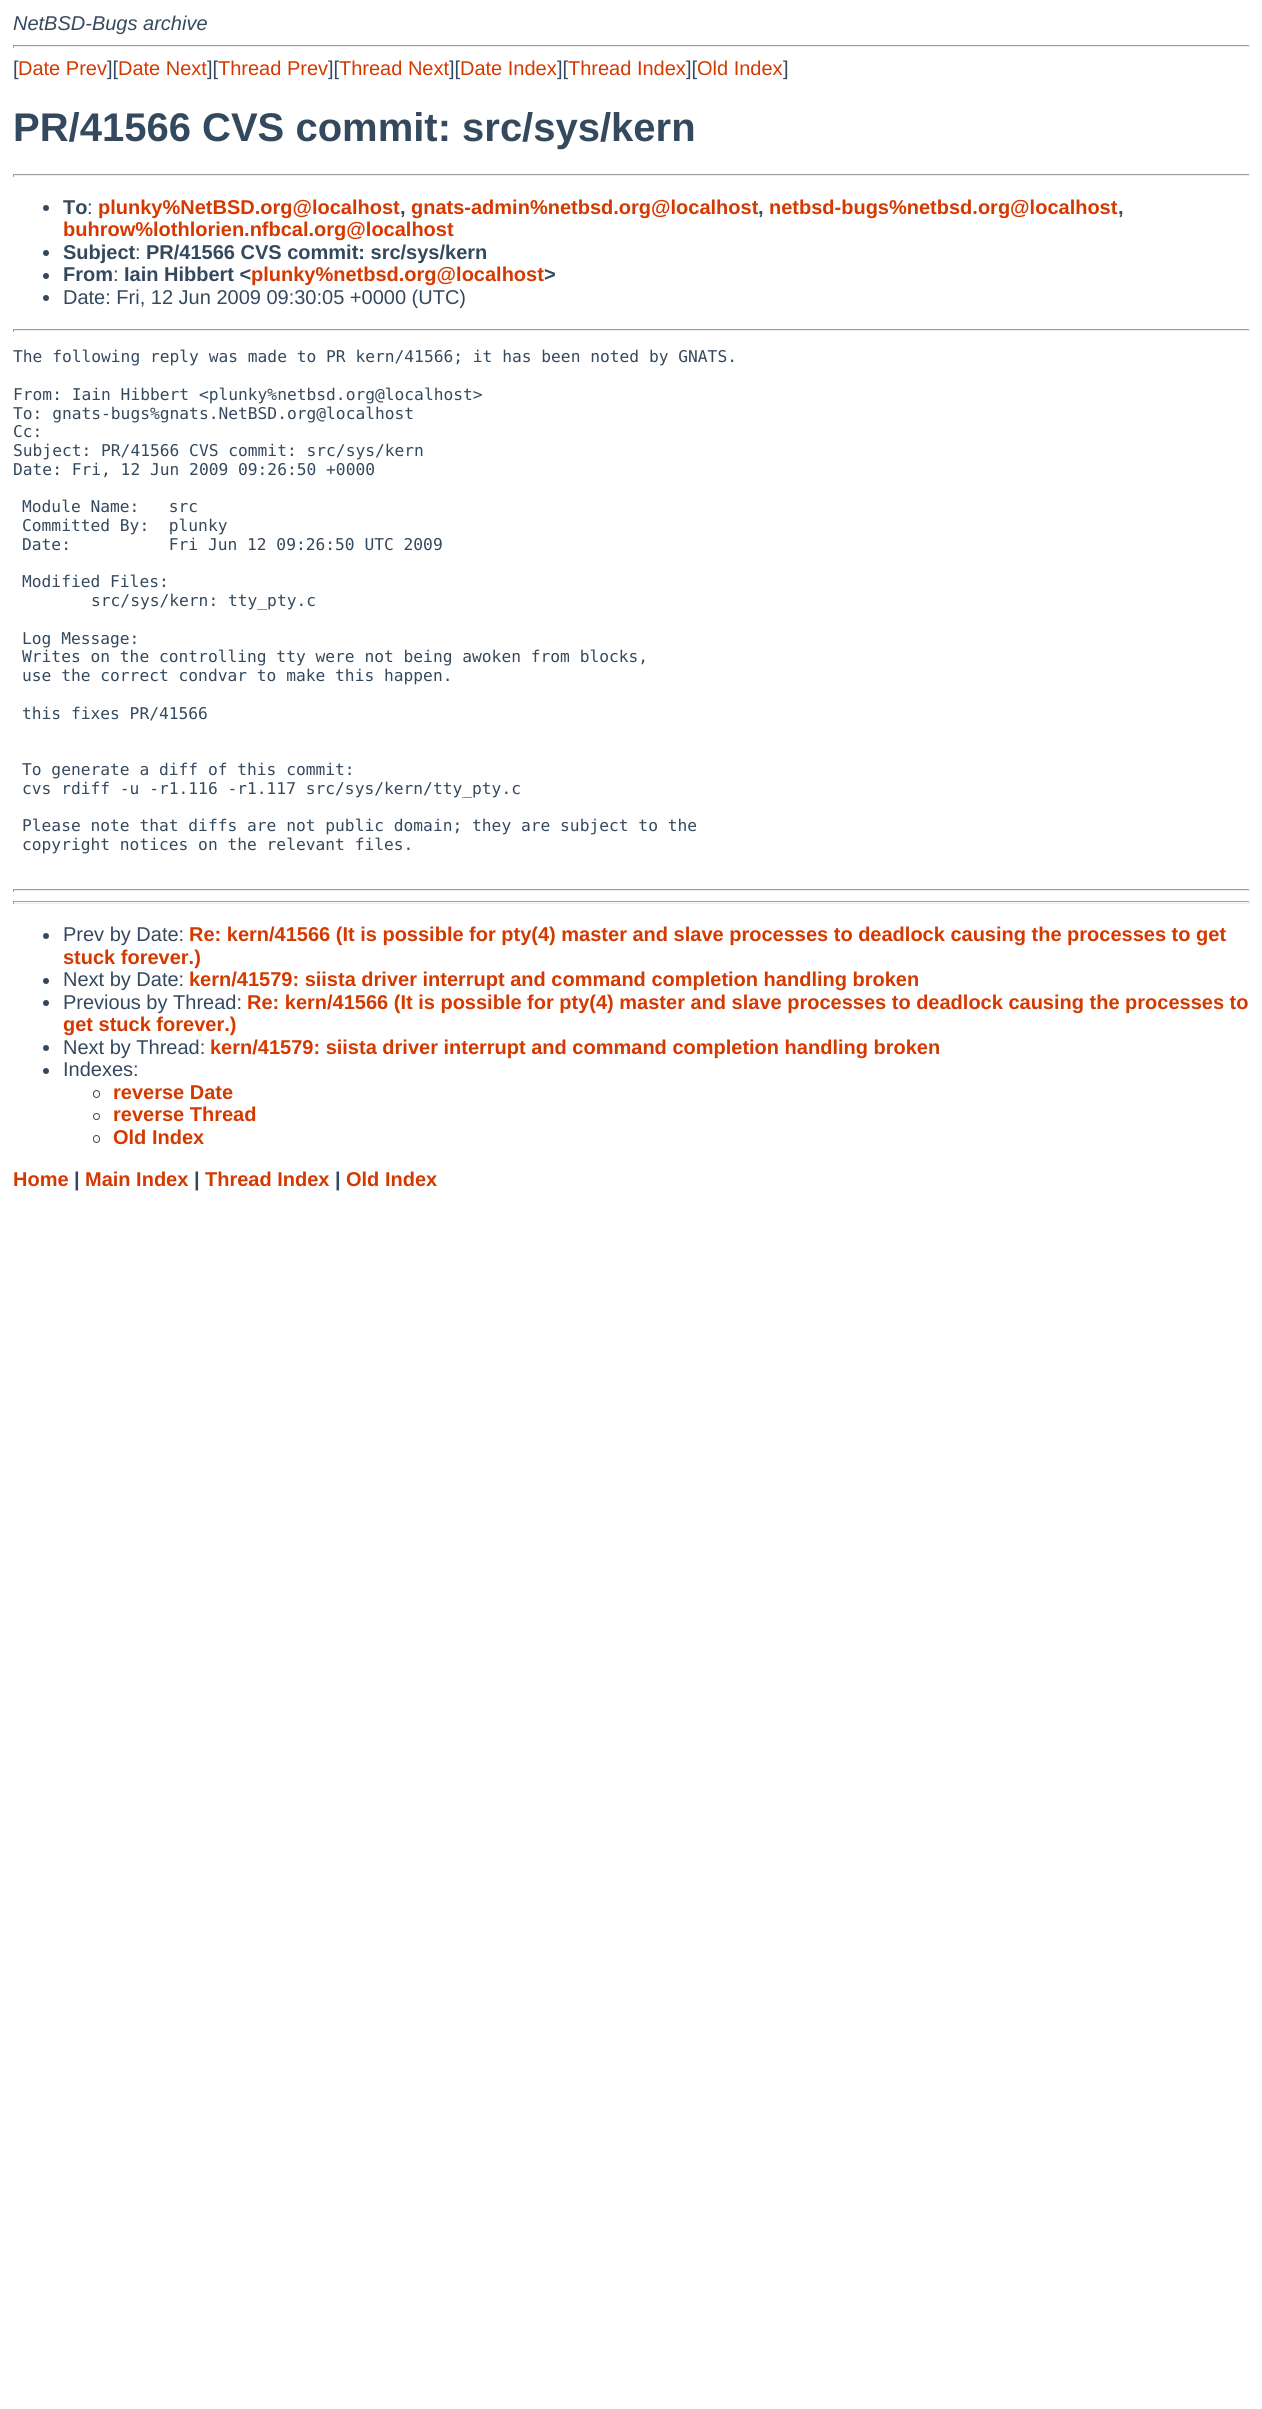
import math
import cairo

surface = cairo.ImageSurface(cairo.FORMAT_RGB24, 1262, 2409)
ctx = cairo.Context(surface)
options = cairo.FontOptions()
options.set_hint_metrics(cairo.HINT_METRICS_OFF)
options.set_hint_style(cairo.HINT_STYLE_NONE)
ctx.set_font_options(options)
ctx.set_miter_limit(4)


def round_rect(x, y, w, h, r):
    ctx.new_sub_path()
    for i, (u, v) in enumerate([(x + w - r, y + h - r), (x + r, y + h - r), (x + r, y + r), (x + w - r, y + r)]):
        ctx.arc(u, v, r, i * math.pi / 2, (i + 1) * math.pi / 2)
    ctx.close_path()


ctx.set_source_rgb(1, 1, 1)
ctx.paint()
ctx.select_font_face("Liberation Sans", cairo.FONT_SLANT_ITALIC)
ctx.set_font_size(20)
ctx.set_source_rgb(0.204, 0.286, 0.369)
ctx.move_to(13, 30)
ctx.show_text("NetBSD-Bugs archive")
ctx.set_source_rgb(0.624, 0.624, 0.624)
ctx.rectangle(13, 45, 1237, 1)
ctx.fill()
ctx.set_source_rgb(0.933, 0.933, 0.933)
ctx.rectangle(1249, 45, 1, 3)
ctx.fill()
ctx.rectangle(13, 46, 1237, 1)
ctx.fill()
ctx.set_source_rgb(0.624, 0.624, 0.624)
ctx.rectangle(13, 45, 1, 3)
ctx.fill()
ctx.select_font_face("Liberation Sans")
ctx.set_source_rgb(0.204, 0.286, 0.369)
ctx.move_to(13, 75)
ctx.show_text("[")
ctx.set_source_rgb(0.831, 0.224, 0)
ctx.move_to(18, 75)
ctx.show_text("Date Prev")
ctx.set_source_rgb(0.204, 0.286, 0.369)
ctx.move_to(107, 75)
ctx.show_text("][")
ctx.set_source_rgb(0.831, 0.224, 0)
ctx.move_to(118, 75)
ctx.show_text("Date Next")
ctx.set_source_rgb(0.204, 0.286, 0.369)
ctx.move_to(207, 75)
ctx.show_text("][")
ctx.set_source_rgb(0.831, 0.224, 0)
ctx.move_to(218, 75)
ctx.show_text("Thread Prev")
ctx.set_source_rgb(0.204, 0.286, 0.369)
ctx.move_to(328, 75)
ctx.show_text("][")
ctx.set_source_rgb(0.831, 0.224, 0)
ctx.move_to(339, 75)
ctx.show_text("Thread Next")
ctx.set_source_rgb(0.204, 0.286, 0.369)
ctx.move_to(449, 75)
ctx.show_text("][")
ctx.set_source_rgb(0.831, 0.224, 0)
ctx.move_to(460, 75)
ctx.show_text("Date Index")
ctx.set_source_rgb(0.204, 0.286, 0.369)
ctx.move_to(557, 75)
ctx.show_text("][")
ctx.set_source_rgb(0.831, 0.224, 0)
ctx.move_to(568, 75)
ctx.show_text("Thread Index")
ctx.set_source_rgb(0.204, 0.286, 0.369)
ctx.move_to(686, 75)
ctx.show_text("][")
ctx.set_source_rgb(0.831, 0.224, 0)
ctx.move_to(697, 75)
ctx.show_text("Old Index")
ctx.set_source_rgb(0.204, 0.286, 0.369)
ctx.move_to(783, 75)
ctx.show_text("]")
ctx.select_font_face("Liberation Sans", cairo.FONT_SLANT_NORMAL, cairo.FONT_WEIGHT_BOLD)
ctx.set_font_size(40)
ctx.move_to(13, 141)
ctx.show_text("PR/41566 CVS commit: src/sys/kern")
ctx.set_source_rgb(0.624, 0.624, 0.624)
ctx.rectangle(13, 174, 1237, 1)
ctx.fill()
ctx.set_source_rgb(0.933, 0.933, 0.933)
ctx.rectangle(1249, 174, 1, 3)
ctx.fill()
ctx.rectangle(13, 175, 1237, 1)
ctx.fill()
ctx.set_source_rgb(0.624, 0.624, 0.624)
ctx.rectangle(13, 174, 1, 3)
ctx.fill()
ctx.set_source_rgb(0.204, 0.286, 0.369)
ctx.arc(46, 208, 3, 0, 2 * math.pi)
ctx.fill()
ctx.set_font_size(20)
ctx.move_to(63, 214)
ctx.show_text("To")
ctx.select_font_face("Liberation Sans")
ctx.move_to(87, 214)
ctx.show_text(":")
ctx.select_font_face("Liberation Sans", cairo.FONT_SLANT_NORMAL, cairo.FONT_WEIGHT_BOLD)
ctx.set_source_rgb(0.831, 0.224, 0)
ctx.move_to(98, 214)
ctx.show_text("plunky%NetBSD.org@localhost")
ctx.move_to(411, 214)
ctx.show_text("gnats-admin%netbsd.org@localhost")
ctx.move_to(769, 214)
ctx.show_text("netbsd-bugs%netbsd.org@localhost")
ctx.set_source_rgb(0.204, 0.286, 0.369)
ctx.move_to(400, 214)
ctx.show_text(",")
ctx.move_to(758, 214)
ctx.show_text(",")
ctx.move_to(1118, 214)
ctx.show_text(",")
ctx.set_source_rgb(0.831, 0.224, 0)
ctx.move_to(63, 236)
ctx.show_text("buhrow%lothlorien.nfbcal.org@localhost")
ctx.set_source_rgb(0.204, 0.286, 0.369)
ctx.new_path()
ctx.arc(46, 253, 3, 0, 2 * math.pi)
ctx.fill()
ctx.move_to(63, 259)
ctx.show_text("Subject")
ctx.select_font_face("Liberation Sans")
ctx.move_to(135, 259)
ctx.show_text(":")
ctx.select_font_face("Liberation Sans", cairo.FONT_SLANT_NORMAL, cairo.FONT_WEIGHT_BOLD)
ctx.move_to(146, 259)
ctx.show_text("PR/41566 CVS commit: src/sys/kern")
ctx.new_path()
ctx.arc(46, 276, 3, 0, 2 * math.pi)
ctx.fill()
ctx.move_to(63, 281)
ctx.show_text("From")
ctx.select_font_face("Liberation Sans")
ctx.move_to(113, 281)
ctx.show_text(":")
ctx.select_font_face("Liberation Sans", cairo.FONT_SLANT_NORMAL, cairo.FONT_WEIGHT_BOLD)
ctx.move_to(124, 281)
ctx.show_text("Iain Hibbert <")
ctx.set_source_rgb(0.831, 0.224, 0)
ctx.move_to(251, 281)
ctx.show_text("plunky%netbsd.org@localhost")
ctx.set_source_rgb(0.204, 0.286, 0.369)
ctx.move_to(544, 281)
ctx.show_text(">")
ctx.new_path()
ctx.arc(46, 298, 3, 0, 2 * math.pi)
ctx.fill()
ctx.select_font_face("Liberation Sans")
ctx.move_to(63, 304)
ctx.show_text("Date: Fri, 12 Jun 2009 09:30:05 +0000 (UTC)")
ctx.set_source_rgb(0.624, 0.624, 0.624)
ctx.rectangle(13, 329, 1237, 1)
ctx.fill()
ctx.set_source_rgb(0.933, 0.933, 0.933)
ctx.rectangle(1249, 329, 1, 3)
ctx.fill()
ctx.rectangle(13, 330, 1237, 1)
ctx.fill()
ctx.set_source_rgb(0.624, 0.624, 0.624)
ctx.rectangle(13, 329, 1, 3)
ctx.fill()
ctx.select_font_face("DejaVu Sans Mono")
ctx.set_font_size(16.25)
ctx.set_source_rgb(0.204, 0.286, 0.369)
ctx.move_to(13, 362)
ctx.show_text("The following reply was made to PR kern/41566; it has been noted by GNATS.")
ctx.move_to(13, 400)
ctx.show_text("From: Iain Hibbert <plunky%netbsd.org@localhost>")
ctx.move_to(13, 419)
ctx.show_text("To: gnats-bugs%gnats.NetBSD.org@localhost")
ctx.move_to(13, 437)
ctx.show_text("Cc:")
ctx.move_to(13, 456)
ctx.show_text("Subject: PR/41566 CVS commit: src/sys/kern")
ctx.move_to(13, 475)
ctx.show_text("Date: Fri, 12 Jun 2009 09:26:50 +0000")
ctx.move_to(22, 512)
ctx.show_text("Module Name:   src")
ctx.move_to(22, 531)
ctx.show_text("Committed By:  plunky")
ctx.move_to(22, 550)
ctx.show_text("Date:          Fri Jun 12 09:26:50 UTC 2009")
ctx.move_to(22, 587)
ctx.show_text("Modified Files:")
ctx.move_to(91, 606)
ctx.show_text("src/sys/kern: tty_pty.c")
ctx.move_to(22, 644)
ctx.show_text("Log Message:")
ctx.move_to(22, 662)
ctx.show_text("Writes on the controlling tty were not being awoken from blocks,")
ctx.move_to(22, 681)
ctx.show_text("use the correct condvar to make this happen.")
ctx.move_to(22, 719)
ctx.show_text("this fixes PR/41566")
ctx.move_to(22, 775)
ctx.show_text("To generate a diff of this commit:")
ctx.move_to(22, 794)
ctx.show_text("cvs rdiff -u -r1.116 -r1.117 src/sys/kern/tty_pty.c")
ctx.move_to(22, 831)
ctx.show_text("Please note that diffs are not public domain; they are subject to the")
ctx.move_to(22, 850)
ctx.show_text("copyright notices on the relevant files.")
ctx.set_source_rgb(0.624, 0.624, 0.624)
ctx.rectangle(13, 889, 1237, 1)
ctx.fill()
ctx.set_source_rgb(0.933, 0.933, 0.933)
ctx.rectangle(1249, 889, 1, 3)
ctx.fill()
ctx.rectangle(13, 890, 1237, 1)
ctx.fill()
ctx.set_source_rgb(0.624, 0.624, 0.624)
ctx.rectangle(13, 889, 1, 3)
ctx.fill()
ctx.rectangle(13, 901, 1237, 1)
ctx.fill()
ctx.set_source_rgb(0.933, 0.933, 0.933)
ctx.rectangle(1249, 901, 1, 3)
ctx.fill()
ctx.rectangle(13, 903, 1237, 1)
ctx.fill()
ctx.set_source_rgb(0.624, 0.624, 0.624)
ctx.rectangle(13, 901, 1, 3)
ctx.fill()
ctx.set_source_rgb(0.204, 0.286, 0.369)
ctx.arc(46, 936, 3, 0, 2 * math.pi)
ctx.fill()
ctx.select_font_face("Liberation Sans")
ctx.set_font_size(20)
ctx.move_to(63, 941)
ctx.show_text("Prev by Date:")
ctx.select_font_face("Liberation Sans", cairo.FONT_SLANT_NORMAL, cairo.FONT_WEIGHT_BOLD)
ctx.set_source_rgb(0.831, 0.224, 0)
ctx.move_to(189, 941)
ctx.show_text("Re: kern/41566 (It is possible for pty(4) master and slave processes to deadlock causing the processes to get")
ctx.move_to(63, 964)
ctx.show_text("stuck forever.)")
ctx.set_source_rgb(0.204, 0.286, 0.369)
ctx.new_path()
ctx.arc(46, 981, 3, 0, 2 * math.pi)
ctx.fill()
ctx.select_font_face("Liberation Sans")
ctx.move_to(63, 986)
ctx.show_text("Next by Date:")
ctx.select_font_face("Liberation Sans", cairo.FONT_SLANT_NORMAL, cairo.FONT_WEIGHT_BOLD)
ctx.set_source_rgb(0.831, 0.224, 0)
ctx.move_to(189, 986)
ctx.show_text("kern/41579: siista driver interrupt and command completion handling broken")
ctx.set_source_rgb(0.204, 0.286, 0.369)
ctx.new_path()
ctx.arc(46, 1003, 3, 0, 2 * math.pi)
ctx.fill()
ctx.select_font_face("Liberation Sans")
ctx.move_to(63, 1009)
ctx.show_text("Previous by Thread:")
ctx.select_font_face("Liberation Sans", cairo.FONT_SLANT_NORMAL, cairo.FONT_WEIGHT_BOLD)
ctx.set_source_rgb(0.831, 0.224, 0)
ctx.move_to(247, 1009)
ctx.show_text("Re: kern/41566 (It is possible for pty(4) master and slave processes to deadlock causing the processes to")
ctx.move_to(63, 1031)
ctx.show_text("get stuck forever.)")
ctx.set_source_rgb(0.204, 0.286, 0.369)
ctx.new_path()
ctx.arc(46, 1048, 3, 0, 2 * math.pi)
ctx.fill()
ctx.select_font_face("Liberation Sans")
ctx.move_to(63, 1054)
ctx.show_text("Next by Thread:")
ctx.select_font_face("Liberation Sans", cairo.FONT_SLANT_NORMAL, cairo.FONT_WEIGHT_BOLD)
ctx.set_source_rgb(0.831, 0.224, 0)
ctx.move_to(210, 1054)
ctx.show_text("kern/41579: siista driver interrupt and command completion handling broken")
ctx.set_source_rgb(0.204, 0.286, 0.369)
ctx.new_path()
ctx.arc(46, 1071, 3, 0, 2 * math.pi)
ctx.fill()
ctx.select_font_face("Liberation Sans")
ctx.move_to(63, 1076)
ctx.show_text("Indexes:")
round_rect(93.5, 1090.5, 6, 7, 3)
ctx.set_line_width(1)
ctx.stroke()
ctx.select_font_face("Liberation Sans", cairo.FONT_SLANT_NORMAL, cairo.FONT_WEIGHT_BOLD)
ctx.set_source_rgb(0.831, 0.224, 0)
ctx.move_to(113, 1099)
ctx.show_text("reverse Date")
ctx.new_path()
ctx.arc(96.5, 1116.5, 3, 0, 2 * math.pi)
ctx.set_source_rgb(0.204, 0.286, 0.369)
ctx.stroke()
ctx.set_source_rgb(0.831, 0.224, 0)
ctx.move_to(113, 1121)
ctx.show_text("reverse Thread")
round_rect(93.5, 1135.5, 6, 7, 3)
ctx.set_source_rgb(0.204, 0.286, 0.369)
ctx.stroke()
ctx.set_source_rgb(0.831, 0.224, 0)
ctx.move_to(113, 1144)
ctx.show_text("Old Index")
ctx.move_to(13, 1186)
ctx.show_text("Home")
ctx.set_source_rgb(0.204, 0.286, 0.369)
ctx.move_to(74, 1186)
ctx.show_text("|")
ctx.set_source_rgb(0.831, 0.224, 0)
ctx.move_to(85, 1186)
ctx.show_text("Main Index")
ctx.set_source_rgb(0.204, 0.286, 0.369)
ctx.move_to(194, 1186)
ctx.show_text("|")
ctx.set_source_rgb(0.831, 0.224, 0)
ctx.move_to(205, 1186)
ctx.show_text("Thread Index")
ctx.set_source_rgb(0.204, 0.286, 0.369)
ctx.move_to(335, 1186)
ctx.show_text("|")
ctx.set_source_rgb(0.831, 0.224, 0)
ctx.move_to(346, 1186)
ctx.show_text("Old Index")
surface.write_to_png("page.png")
